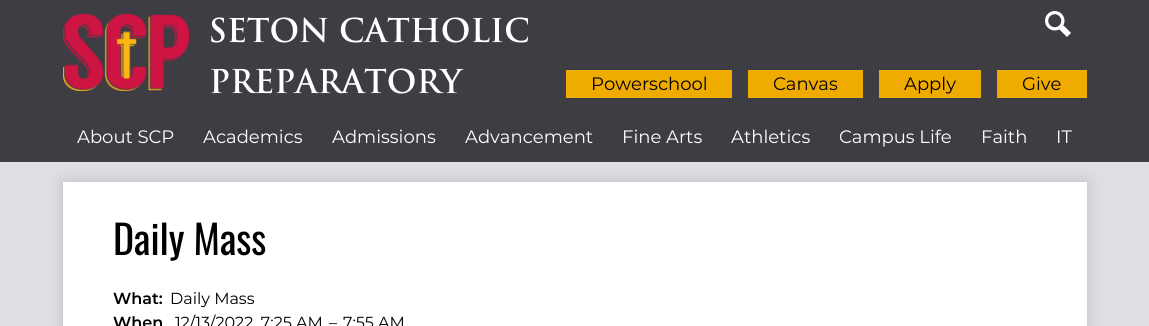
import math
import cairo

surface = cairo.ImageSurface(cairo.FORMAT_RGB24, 1149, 326)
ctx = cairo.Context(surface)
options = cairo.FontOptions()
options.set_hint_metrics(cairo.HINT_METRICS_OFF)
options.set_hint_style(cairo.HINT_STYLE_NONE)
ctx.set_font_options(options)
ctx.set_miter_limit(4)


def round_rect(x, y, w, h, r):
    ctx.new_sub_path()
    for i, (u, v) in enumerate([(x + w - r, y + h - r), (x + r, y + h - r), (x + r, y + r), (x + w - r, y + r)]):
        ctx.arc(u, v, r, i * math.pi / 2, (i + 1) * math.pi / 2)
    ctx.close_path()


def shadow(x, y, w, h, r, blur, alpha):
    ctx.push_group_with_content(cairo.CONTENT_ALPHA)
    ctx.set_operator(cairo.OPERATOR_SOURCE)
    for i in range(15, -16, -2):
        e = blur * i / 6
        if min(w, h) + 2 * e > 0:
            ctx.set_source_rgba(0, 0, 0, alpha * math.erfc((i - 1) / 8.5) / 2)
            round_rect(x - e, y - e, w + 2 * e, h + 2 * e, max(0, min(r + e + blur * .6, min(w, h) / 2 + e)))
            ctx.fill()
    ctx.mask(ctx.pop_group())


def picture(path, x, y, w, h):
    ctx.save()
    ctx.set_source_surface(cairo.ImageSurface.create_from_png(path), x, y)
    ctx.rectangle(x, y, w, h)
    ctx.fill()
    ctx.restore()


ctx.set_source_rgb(0.867, 0.875, 0.886)
ctx.paint()
ctx.set_source_rgb(0, 0, 0)
shadow(63, 182, 1024, 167, 0, 7.5, 0.15)
ctx.set_source_rgb(0.239, 0.239, 0.263)
ctx.rectangle(0, 0, 1149, 162)
ctx.fill()
picture("img1.png", 63, 14, 126, 77)
ctx.select_font_face("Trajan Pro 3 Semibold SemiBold")
ctx.set_font_size(32)
ctx.set_source_rgb(1, 1, 1)
ctx.move_to(209, 42)
ctx.show_text("SETON CATHOLIC")
ctx.move_to(209, 93)
ctx.show_text("PREPARATORY")
picture("img2.png", 1045, 11, 26, 26)
ctx.set_source_rgb(0.941, 0.671, 0)
ctx.rectangle(566, 70, 166, 28)
ctx.fill()
ctx.select_font_face("Montserrat")
ctx.set_font_size(18)
ctx.set_source_rgb(0, 0, 0)
ctx.move_to(591, 90)
ctx.show_text("Powerschool")
ctx.set_source_rgb(0.941, 0.671, 0)
ctx.rectangle(748, 70, 115, 28)
ctx.fill()
ctx.set_source_rgb(0, 0, 0)
ctx.move_to(773, 90)
ctx.show_text("Canvas")
ctx.set_source_rgb(0.941, 0.671, 0)
ctx.rectangle(879, 70, 102, 28)
ctx.fill()
ctx.set_source_rgb(0, 0, 0)
ctx.move_to(904, 90)
ctx.show_text("Apply")
ctx.set_source_rgb(0.941, 0.671, 0)
ctx.rectangle(997, 70, 90, 28)
ctx.fill()
ctx.set_source_rgb(0, 0, 0)
ctx.move_to(1022, 90)
ctx.show_text("Give")
ctx.set_source_rgb(1, 1, 1)
ctx.move_to(77, 143)
ctx.show_text("About SCP")
ctx.move_to(203, 143)
ctx.show_text("Academics")
ctx.move_to(332, 143)
ctx.show_text("Admissions")
ctx.move_to(465, 143)
ctx.show_text("Advancement")
ctx.move_to(622, 143)
ctx.show_text("Fine Arts")
ctx.move_to(731, 143)
ctx.show_text("Athletics")
ctx.move_to(839, 143)
ctx.show_text("Campus Life")
ctx.move_to(981, 143)
ctx.show_text("Faith")
ctx.move_to(1056, 143)
ctx.show_text("IT")
ctx.rectangle(63, 182, 1024, 144)
ctx.fill()
ctx.select_font_face("Oswald")
ctx.set_font_size(40)
ctx.set_source_rgb(0, 0, 0)
ctx.move_to(113, 255)
ctx.show_text("Daily Mass")
ctx.select_font_face("Montserrat SemiBold")
ctx.set_font_size(16)
ctx.move_to(113, 304)
ctx.show_text("What:")
ctx.select_font_face("Montserrat")
ctx.move_to(170, 304)
ctx.show_text("Daily Mass")
ctx.select_font_face("Montserrat SemiBold")
ctx.move_to(113, 328)
ctx.show_text("When")
ctx.select_font_face("Montserrat")
ctx.move_to(175, 328)
ctx.show_text("12/13/2022, 7:25 AM")
ctx.move_to(329, 328)
ctx.show_text("–")
ctx.move_to(343, 328)
ctx.show_text("7:55 AM")
surface.write_to_png("page.png")
